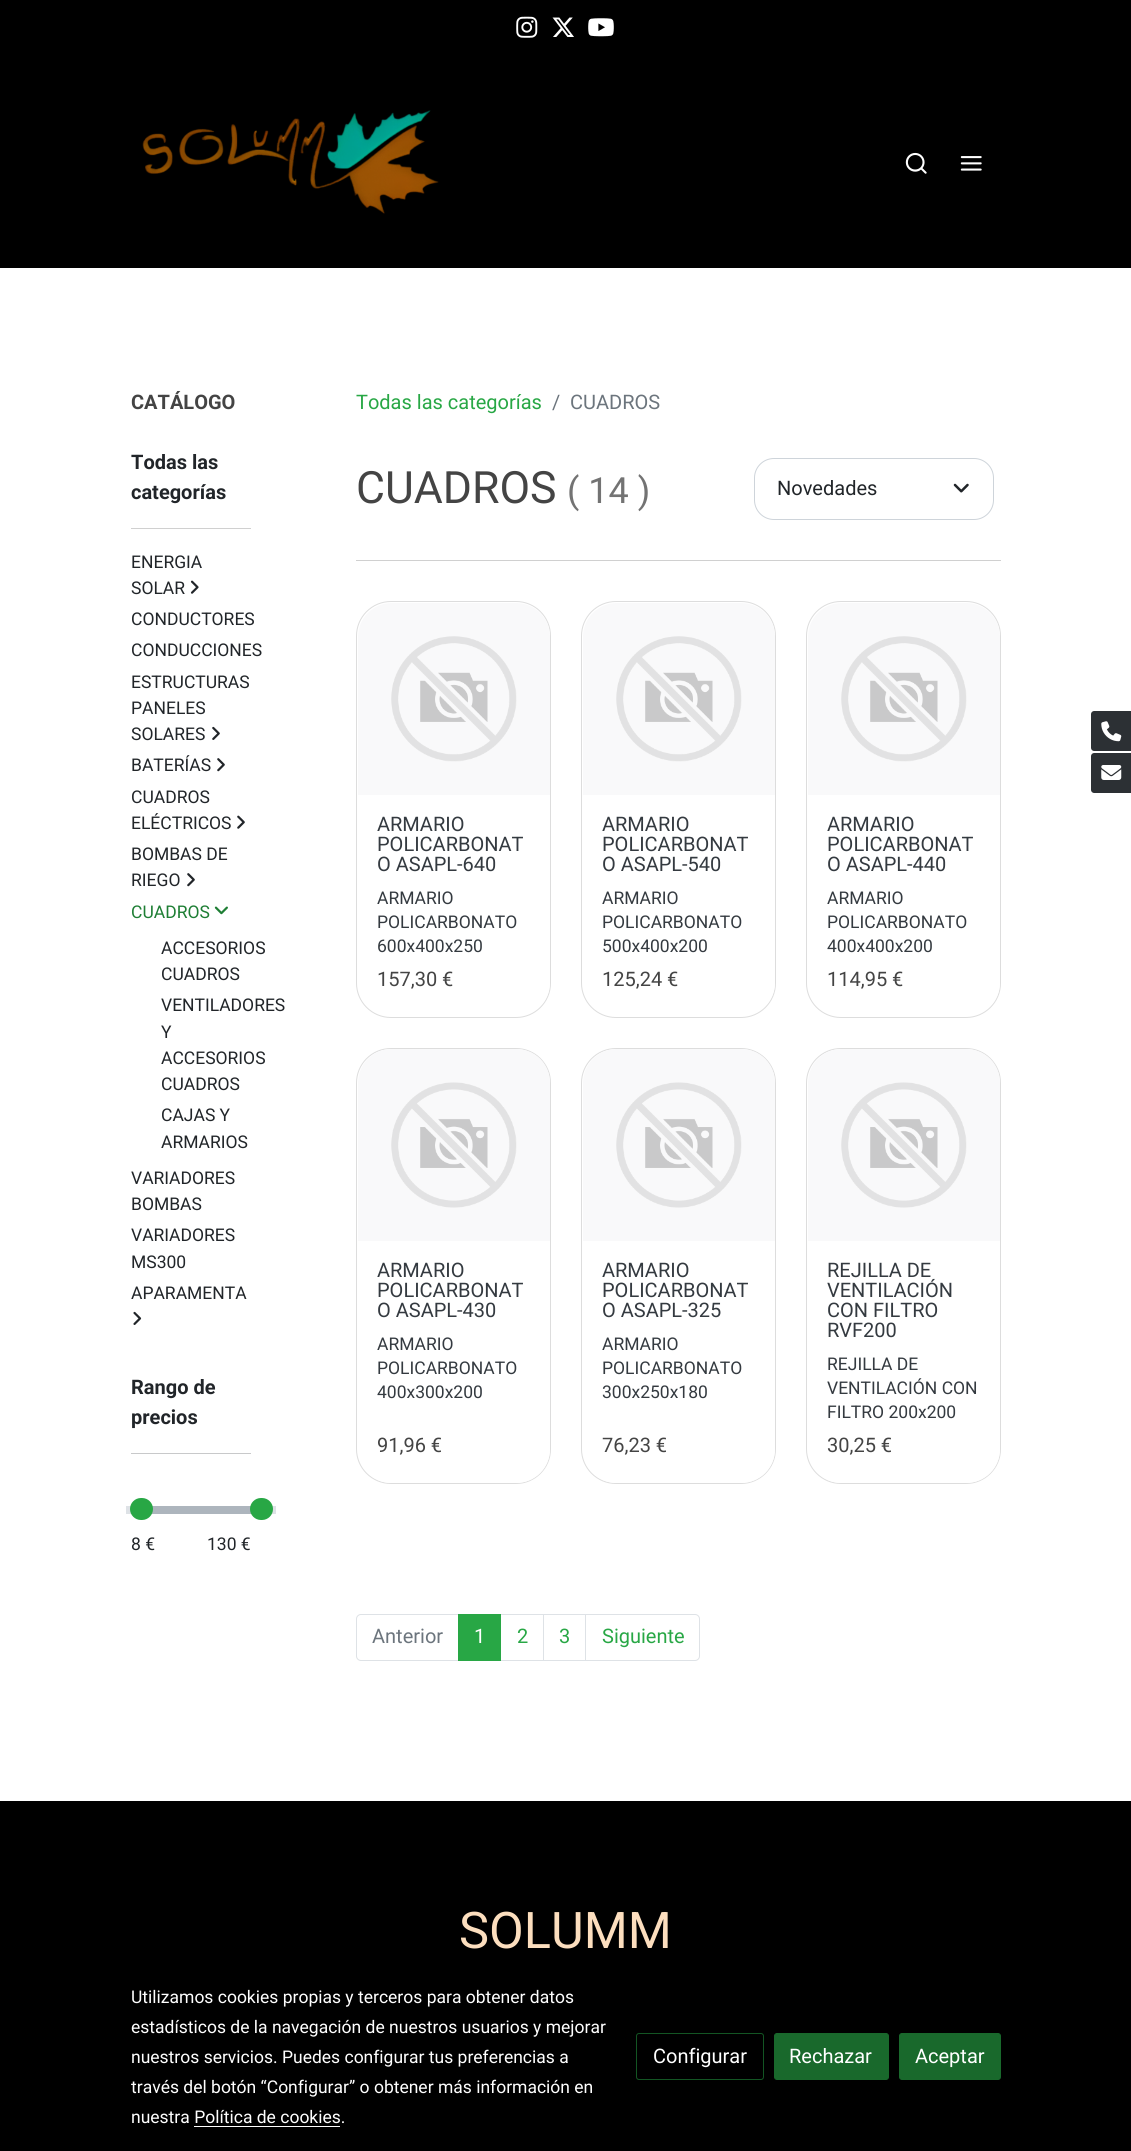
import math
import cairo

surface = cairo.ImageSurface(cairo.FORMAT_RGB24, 1131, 2151)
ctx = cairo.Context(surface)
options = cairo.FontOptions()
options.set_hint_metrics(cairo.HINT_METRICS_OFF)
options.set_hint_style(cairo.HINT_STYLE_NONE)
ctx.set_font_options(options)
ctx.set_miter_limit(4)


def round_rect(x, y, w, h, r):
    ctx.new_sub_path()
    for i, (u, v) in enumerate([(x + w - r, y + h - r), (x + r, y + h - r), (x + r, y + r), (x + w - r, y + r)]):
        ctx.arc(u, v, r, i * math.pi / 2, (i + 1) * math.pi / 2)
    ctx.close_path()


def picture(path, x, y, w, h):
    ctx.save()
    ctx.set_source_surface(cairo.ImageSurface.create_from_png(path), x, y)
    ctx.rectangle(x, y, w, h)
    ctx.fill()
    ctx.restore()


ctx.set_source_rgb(1, 1, 1)
ctx.paint()
ctx.set_source_rgb(0, 0, 0)
ctx.rectangle(0, 0, 1131, 268)
ctx.fill()
picture("img1.png", 516, 16, 22, 22)
picture("img2.png", 552, 17, 22, 20)
picture("img3.png", 588, 18, 26, 19)
picture("img4.png", 142, 110, 297, 104)
picture("img5.png", 905, 152, 22, 22)
picture("img6.png", 960, 156, 22, 15)
ctx.select_font_face("Roboto", cairo.FONT_SLANT_NORMAL, cairo.FONT_WEIGHT_BOLD)
ctx.set_font_size(20)
ctx.set_source_rgb(0.267, 0.267, 0.267)
ctx.move_to(131, 409)
ctx.show_text("CATÁLOGO")
ctx.set_source_rgb(0.129, 0.145, 0.161)
ctx.move_to(131, 469)
ctx.show_text("Todas las")
ctx.move_to(131, 499)
ctx.show_text("categorías")
ctx.set_source_rgb(0.816, 0.816, 0.816)
ctx.rectangle(131, 528, 120, 1)
ctx.fill()
ctx.select_font_face("Roboto")
ctx.set_font_size(17.5)
ctx.set_source_rgb(0.129, 0.145, 0.161)
ctx.move_to(131, 568)
ctx.show_text("ENERGIA")
ctx.move_to(131, 594)
ctx.show_text("SOLAR")
picture("img7.png", 190, 580, 9, 14)
ctx.move_to(131, 625)
ctx.show_text("CONDUCTORES")
ctx.move_to(131, 656)
ctx.show_text("CONDUCCIONES")
ctx.move_to(131, 688)
ctx.show_text("ESTRUCTURAS")
ctx.move_to(131, 714)
ctx.show_text("PANELES")
ctx.move_to(131, 740)
ctx.show_text("SOLARES")
picture("img8.png", 212, 726, 8, 14)
ctx.move_to(131, 771)
ctx.show_text("BATERÍAS")
picture("img9.png", 217, 758, 8, 14)
ctx.move_to(131, 803)
ctx.show_text("CUADROS")
ctx.move_to(131, 829)
ctx.show_text("ELÉCTRICOS")
picture("img10.png", 237, 815, 8, 14)
ctx.move_to(131, 860)
ctx.show_text("BOMBAS DE")
ctx.move_to(131, 886)
ctx.show_text("RIEGO")
picture("img9.png", 187, 873, 8, 14)
ctx.set_source_rgb(0.118, 0.494, 0.204)
ctx.move_to(131, 918)
ctx.show_text("CUADROS")
picture("img11.png", 214, 906, 14, 9)
ctx.set_source_rgb(0.129, 0.145, 0.161)
ctx.move_to(161, 954)
ctx.show_text("ACCESORIOS")
ctx.move_to(161, 980)
ctx.show_text("CUADROS")
ctx.move_to(161, 1011)
ctx.show_text("VENTILADORES")
ctx.move_to(161, 1038)
ctx.show_text("Y")
ctx.move_to(161, 1064)
ctx.show_text("ACCESORIOS")
ctx.move_to(161, 1090)
ctx.show_text("CUADROS")
ctx.move_to(161, 1121)
ctx.show_text("CAJAS Y")
ctx.move_to(161, 1148)
ctx.show_text("ARMARIOS")
ctx.move_to(131, 1184)
ctx.show_text("VARIADORES")
ctx.move_to(131, 1210)
ctx.show_text("BOMBAS")
ctx.move_to(131, 1241)
ctx.show_text("VARIADORES")
ctx.move_to(131, 1268)
ctx.show_text("MS300")
ctx.move_to(131, 1299)
ctx.show_text("APARAMENTA")
picture("img12.png", 133, 1311, 9, 14)
ctx.select_font_face("Roboto", cairo.FONT_SLANT_NORMAL, cairo.FONT_WEIGHT_BOLD)
ctx.set_font_size(20)
ctx.move_to(131, 1394)
ctx.show_text("Rango de")
ctx.move_to(131, 1424)
ctx.show_text("precios")
ctx.set_source_rgb(0.784, 0.788, 0.792)
ctx.rectangle(131, 1453, 120, 1)
ctx.fill()
ctx.set_source_rgb(0.871, 0.886, 0.902)
ctx.rectangle(126, 1506, 150, 8)
ctx.fill()
ctx.set_source_rgb(0.678, 0.71, 0.741)
ctx.rectangle(151, 1506, 101, 8)
ctx.fill()
ctx.set_source_rgb(0.157, 0.655, 0.271)
round_rect(130, 1498, 23, 22, 11)
ctx.fill()
round_rect(250, 1498, 23, 22, 11)
ctx.fill()
ctx.select_font_face("Roboto")
ctx.set_font_size(17.5)
ctx.set_source_rgb(0.129, 0.145, 0.161)
ctx.move_to(131, 1550)
ctx.show_text("8 €")
ctx.move_to(207, 1550)
ctx.show_text("130 €")
ctx.set_font_size(20)
ctx.set_source_rgb(0.157, 0.655, 0.271)
ctx.move_to(356, 409)
ctx.show_text("Todas las categorías")
ctx.set_source_rgb(0.424, 0.459, 0.49)
ctx.move_to(552, 409)
ctx.show_text("/")
ctx.move_to(570, 409)
ctx.show_text("CUADROS")
ctx.set_font_size(44.5)
ctx.set_source_rgb(0.267, 0.267, 0.267)
ctx.move_to(356, 503)
ctx.show_text("CUADROS")
ctx.set_font_size(36)
ctx.set_source_rgb(0.451, 0.451, 0.451)
ctx.move_to(567, 503)
ctx.show_text("( 14 )")
round_rect(754.5, 458.5, 239, 61, 19.5)
ctx.set_source_rgb(0.808, 0.831, 0.855)
ctx.set_line_width(1)
ctx.stroke()
ctx.set_font_size(20)
ctx.set_source_rgb(0.129, 0.145, 0.161)
ctx.move_to(777, 495)
ctx.show_text("Novedades")
picture("img13.png", 953, 483, 16, 10)
ctx.set_source_rgb(0.816, 0.816, 0.816)
ctx.rectangle(356, 560, 645, 1)
ctx.fill()
round_rect(356.5, 601.5, 194, 416, 34.5)
ctx.set_source_rgb(0.867, 0.867, 0.867)
ctx.stroke()
ctx.set_source_rgb(0.973, 0.976, 0.98)
ctx.new_path()
ctx.move_to(392, 603)
ctx.line_to(516, 603)
ctx.curve_to(535, 603, 550, 618, 550, 637)
ctx.line_to(550, 795)
ctx.line_to(358, 795)
ctx.line_to(358, 637)
ctx.curve_to(358, 618, 373, 603, 392, 603)
ctx.close_path()
ctx.fill()
picture("img14.png", 391, 636, 126, 126)
ctx.set_source_rgb(1, 1, 1)
ctx.new_path()
ctx.move_to(358, 795)
ctx.line_to(550, 795)
ctx.line_to(550, 982)
ctx.curve_to(550, 1001, 535, 1016, 516, 1016)
ctx.line_to(392, 1016)
ctx.curve_to(373, 1016, 358, 1001, 358, 982)
ctx.close_path()
ctx.fill()
ctx.set_source_rgb(0.204, 0.227, 0.251)
ctx.move_to(377, 831)
ctx.show_text("ARMARIO")
ctx.move_to(377, 851)
ctx.show_text("POLICARBONAT")
ctx.move_to(377, 871)
ctx.show_text("O ASAPL-640")
ctx.set_font_size(17.5)
ctx.move_to(377, 904)
ctx.show_text("ARMARIO")
ctx.move_to(377, 928)
ctx.show_text("POLICARBONATO")
ctx.move_to(377, 952)
ctx.show_text("600x400x250")
ctx.set_font_size(20)
ctx.set_source_rgb(0.267, 0.267, 0.267)
ctx.move_to(377, 986)
ctx.show_text("157,30 €")
round_rect(581.5, 601.5, 194, 416, 34.5)
ctx.set_source_rgb(0.867, 0.867, 0.867)
ctx.stroke()
ctx.set_source_rgb(0.973, 0.976, 0.98)
ctx.new_path()
ctx.move_to(617, 603)
ctx.line_to(741, 603)
ctx.curve_to(760, 603, 775, 618, 775, 637)
ctx.line_to(775, 795)
ctx.line_to(583, 795)
ctx.line_to(583, 637)
ctx.curve_to(583, 618, 598, 603, 617, 603)
ctx.close_path()
ctx.fill()
picture("img14.png", 616, 636, 126, 126)
ctx.set_source_rgb(1, 1, 1)
ctx.new_path()
ctx.move_to(583, 795)
ctx.line_to(775, 795)
ctx.line_to(775, 982)
ctx.curve_to(775, 1001, 760, 1016, 741, 1016)
ctx.line_to(617, 1016)
ctx.curve_to(598, 1016, 583, 1001, 583, 982)
ctx.close_path()
ctx.fill()
ctx.set_source_rgb(0.204, 0.227, 0.251)
ctx.move_to(602, 831)
ctx.show_text("ARMARIO")
ctx.move_to(602, 851)
ctx.show_text("POLICARBONAT")
ctx.move_to(602, 871)
ctx.show_text("O ASAPL-540")
ctx.set_font_size(17.5)
ctx.move_to(602, 904)
ctx.show_text("ARMARIO")
ctx.move_to(602, 928)
ctx.show_text("POLICARBONATO")
ctx.move_to(602, 952)
ctx.show_text("500x400x200")
ctx.set_font_size(20)
ctx.set_source_rgb(0.267, 0.267, 0.267)
ctx.move_to(602, 986)
ctx.show_text("125,24 €")
round_rect(806.5, 601.5, 194, 416, 34.5)
ctx.set_source_rgb(0.867, 0.867, 0.867)
ctx.stroke()
ctx.set_source_rgb(0.973, 0.976, 0.98)
ctx.new_path()
ctx.move_to(842, 603)
ctx.line_to(966, 603)
ctx.curve_to(985, 603, 1000, 618, 1000, 637)
ctx.line_to(1000, 795)
ctx.line_to(808, 795)
ctx.line_to(808, 637)
ctx.curve_to(808, 618, 823, 603, 842, 603)
ctx.close_path()
ctx.fill()
picture("img14.png", 841, 636, 126, 126)
ctx.set_source_rgb(1, 1, 1)
ctx.new_path()
ctx.move_to(808, 795)
ctx.line_to(1000, 795)
ctx.line_to(1000, 982)
ctx.curve_to(1000, 1001, 985, 1016, 966, 1016)
ctx.line_to(842, 1016)
ctx.curve_to(823, 1016, 808, 1001, 808, 982)
ctx.close_path()
ctx.fill()
ctx.set_source_rgb(0.204, 0.227, 0.251)
ctx.move_to(827, 831)
ctx.show_text("ARMARIO")
ctx.move_to(827, 851)
ctx.show_text("POLICARBONAT")
ctx.move_to(827, 871)
ctx.show_text("O ASAPL-440")
ctx.set_font_size(17.5)
ctx.move_to(827, 904)
ctx.show_text("ARMARIO")
ctx.move_to(827, 928)
ctx.show_text("POLICARBONATO")
ctx.move_to(827, 952)
ctx.show_text("400x400x200")
ctx.set_font_size(20)
ctx.set_source_rgb(0.267, 0.267, 0.267)
ctx.move_to(827, 986)
ctx.show_text("114,95 €")
round_rect(356.5, 1048.5, 194, 435, 34.5)
ctx.set_source_rgb(0.867, 0.867, 0.867)
ctx.stroke()
ctx.set_source_rgb(0.973, 0.976, 0.98)
ctx.new_path()
ctx.move_to(392, 1049)
ctx.line_to(516, 1049)
ctx.curve_to(535, 1049, 550, 1064, 550, 1083)
ctx.line_to(550, 1241)
ctx.line_to(358, 1241)
ctx.line_to(358, 1083)
ctx.curve_to(358, 1064, 373, 1049, 392, 1049)
ctx.close_path()
ctx.fill()
picture("img15.png", 391, 1082, 126, 126)
ctx.set_source_rgb(1, 1, 1)
ctx.new_path()
ctx.move_to(358, 1241)
ctx.line_to(550, 1241)
ctx.line_to(550, 1449)
ctx.curve_to(550, 1468, 535, 1483, 516, 1483)
ctx.line_to(392, 1483)
ctx.curve_to(373, 1483, 358, 1468, 358, 1449)
ctx.close_path()
ctx.fill()
ctx.set_source_rgb(0.204, 0.227, 0.251)
ctx.move_to(377, 1277)
ctx.show_text("ARMARIO")
ctx.move_to(377, 1297)
ctx.show_text("POLICARBONAT")
ctx.move_to(377, 1317)
ctx.show_text("O ASAPL-430")
ctx.set_font_size(17.5)
ctx.move_to(377, 1350)
ctx.show_text("ARMARIO")
ctx.move_to(377, 1374)
ctx.show_text("POLICARBONATO")
ctx.move_to(377, 1398)
ctx.show_text("400x300x200")
ctx.set_font_size(20)
ctx.set_source_rgb(0.267, 0.267, 0.267)
ctx.move_to(377, 1452)
ctx.show_text("91,96 €")
round_rect(581.5, 1048.5, 194, 435, 34.5)
ctx.set_source_rgb(0.867, 0.867, 0.867)
ctx.stroke()
ctx.set_source_rgb(0.973, 0.976, 0.98)
ctx.new_path()
ctx.move_to(617, 1049)
ctx.line_to(741, 1049)
ctx.curve_to(760, 1049, 775, 1064, 775, 1083)
ctx.line_to(775, 1241)
ctx.line_to(583, 1241)
ctx.line_to(583, 1083)
ctx.curve_to(583, 1064, 598, 1049, 617, 1049)
ctx.close_path()
ctx.fill()
picture("img15.png", 616, 1082, 126, 126)
ctx.set_source_rgb(1, 1, 1)
ctx.new_path()
ctx.move_to(583, 1241)
ctx.line_to(775, 1241)
ctx.line_to(775, 1449)
ctx.curve_to(775, 1468, 760, 1483, 741, 1483)
ctx.line_to(617, 1483)
ctx.curve_to(598, 1483, 583, 1468, 583, 1449)
ctx.close_path()
ctx.fill()
ctx.set_source_rgb(0.204, 0.227, 0.251)
ctx.move_to(602, 1277)
ctx.show_text("ARMARIO")
ctx.move_to(602, 1297)
ctx.show_text("POLICARBONAT")
ctx.move_to(602, 1317)
ctx.show_text("O ASAPL-325")
ctx.set_font_size(17.5)
ctx.move_to(602, 1350)
ctx.show_text("ARMARIO")
ctx.move_to(602, 1374)
ctx.show_text("POLICARBONATO")
ctx.move_to(602, 1398)
ctx.show_text("300x250x180")
ctx.set_font_size(20)
ctx.set_source_rgb(0.267, 0.267, 0.267)
ctx.move_to(602, 1452)
ctx.show_text("76,23 €")
round_rect(806.5, 1048.5, 194, 435, 34.5)
ctx.set_source_rgb(0.867, 0.867, 0.867)
ctx.stroke()
ctx.set_source_rgb(0.973, 0.976, 0.98)
ctx.new_path()
ctx.move_to(842, 1049)
ctx.line_to(966, 1049)
ctx.curve_to(985, 1049, 1000, 1064, 1000, 1083)
ctx.line_to(1000, 1241)
ctx.line_to(808, 1241)
ctx.line_to(808, 1083)
ctx.curve_to(808, 1064, 823, 1049, 842, 1049)
ctx.close_path()
ctx.fill()
picture("img15.png", 841, 1082, 126, 126)
ctx.set_source_rgb(1, 1, 1)
ctx.new_path()
ctx.move_to(808, 1241)
ctx.line_to(1000, 1241)
ctx.line_to(1000, 1449)
ctx.curve_to(1000, 1468, 985, 1483, 966, 1483)
ctx.line_to(842, 1483)
ctx.curve_to(823, 1483, 808, 1468, 808, 1449)
ctx.close_path()
ctx.fill()
ctx.set_source_rgb(0.204, 0.227, 0.251)
ctx.move_to(827, 1277)
ctx.show_text("REJILLA DE")
ctx.move_to(827, 1297)
ctx.show_text("VENTILACIÓN")
ctx.move_to(827, 1317)
ctx.show_text("CON FILTRO")
ctx.move_to(827, 1337)
ctx.show_text("RVF200")
ctx.set_font_size(17.5)
ctx.move_to(827, 1370)
ctx.show_text("REJILLA DE")
ctx.move_to(827, 1394)
ctx.show_text("VENTILACIÓN CON")
ctx.move_to(827, 1418)
ctx.show_text("FILTRO 200x200")
ctx.set_font_size(20)
ctx.set_source_rgb(0.267, 0.267, 0.267)
ctx.move_to(827, 1452)
ctx.show_text("30,25 €")
ctx.new_path()
ctx.move_to(361, 1614.5)
ctx.line_to(458.5, 1614.5)
ctx.line_to(458.5, 1660.5)
ctx.line_to(361, 1660.5)
ctx.curve_to(358.5, 1660.5, 356.5, 1658.5, 356.5, 1656)
ctx.line_to(356.5, 1619)
ctx.curve_to(356.5, 1616.5, 358.5, 1614.5, 361, 1614.5)
ctx.close_path()
ctx.set_source_rgb(0.871, 0.886, 0.902)
ctx.stroke()
ctx.set_source_rgb(0.424, 0.459, 0.49)
ctx.move_to(372, 1643)
ctx.show_text("Anterior")
ctx.rectangle(500.5, 1614.5, 43, 46)
ctx.set_source_rgb(0.871, 0.886, 0.902)
ctx.stroke()
ctx.set_source_rgb(0.157, 0.655, 0.271)
ctx.rectangle(458, 1614, 43, 47)
ctx.fill()
ctx.set_source_rgb(1, 1, 1)
ctx.move_to(474, 1643)
ctx.show_text("1")
ctx.set_source_rgb(0.157, 0.655, 0.271)
ctx.move_to(517, 1643)
ctx.show_text("2")
ctx.rectangle(543.5, 1614.5, 42, 46)
ctx.set_source_rgb(0.871, 0.886, 0.902)
ctx.stroke()
ctx.set_source_rgb(0.157, 0.655, 0.271)
ctx.move_to(559, 1643)
ctx.show_text("3")
ctx.set_source_rgb(1, 1, 1)
ctx.new_path()
ctx.move_to(585.5, 1614.5)
ctx.line_to(695, 1614.5)
ctx.curve_to(697.5, 1614.5, 699.5, 1616.5, 699.5, 1619)
ctx.line_to(699.5, 1656)
ctx.curve_to(699.5, 1658.5, 697.5, 1660.5, 695, 1660.5)
ctx.line_to(585.5, 1660.5)
ctx.close_path()
ctx.fill_preserve()
ctx.set_source_rgb(0.871, 0.886, 0.902)
ctx.stroke()
ctx.set_source_rgb(0.157, 0.655, 0.271)
ctx.move_to(602, 1643)
ctx.show_text("Siguiente")
ctx.set_source_rgb(0, 0, 0)
ctx.rectangle(0, 1801, 1131, 350)
ctx.fill()
ctx.set_font_size(50.5)
ctx.set_source_rgb(0.988, 0.871, 0.745)
ctx.move_to(459, 1948)
ctx.show_text("SOLUMM")
ctx.set_source_rgb(0.173, 0.188, 0.204)
ctx.new_path()
ctx.move_to(1094, 711)
ctx.line_to(1131, 711)
ctx.line_to(1131, 751)
ctx.line_to(1094, 751)
ctx.curve_to(1092.5, 751, 1091, 749.5, 1091, 748)
ctx.line_to(1091, 714)
ctx.curve_to(1091, 712.5, 1092.5, 711, 1094, 711)
ctx.close_path()
ctx.fill()
picture("img16.png", 1101, 721, 21, 21)
ctx.new_path()
ctx.move_to(1094, 753)
ctx.line_to(1131, 753)
ctx.line_to(1131, 793)
ctx.line_to(1094, 793)
ctx.curve_to(1092.5, 793, 1091, 791.5, 1091, 790)
ctx.line_to(1091, 756)
ctx.curve_to(1091, 754.5, 1092.5, 753, 1094, 753)
ctx.close_path()
ctx.fill()
picture("img17.png", 1101, 765, 21, 15)
ctx.set_font_size(17.5)
ctx.set_source_rgb(1, 1, 1)
ctx.move_to(131, 2003)
ctx.show_text("Utilizamos cookies propias y terceros para obtener datos")
ctx.move_to(131, 2033)
ctx.show_text("estadísticos de la navegación de nuestros usuarios y mejorar")
ctx.move_to(131, 2063)
ctx.show_text("nuestros servicios. Puedes configurar tus preferencias a")
ctx.move_to(131, 2093)
ctx.show_text("través del botón “Configurar” o obtener más información en")
ctx.move_to(131, 2123)
ctx.show_text("nuestra Política de cookies.")
ctx.rectangle(194, 2126, 146, 1)
ctx.fill()
round_rect(636.5, 2033.5, 127, 46, 2.5)
ctx.set_source_rgb(0.078, 0.333, 0.137)
ctx.stroke()
ctx.set_font_size(20)
ctx.set_source_rgb(1, 1, 1)
ctx.move_to(653, 2063)
ctx.show_text("Configurar")
ctx.set_source_rgb(0.098, 0.412, 0.173)
round_rect(774.5, 2033.5, 114, 46, 2.5)
ctx.fill_preserve()
ctx.stroke()
ctx.set_source_rgb(1, 1, 1)
ctx.move_to(789, 2063)
ctx.show_text("Rechazar")
ctx.set_source_rgb(0.098, 0.412, 0.173)
round_rect(899.5, 2033.5, 101, 46, 2.5)
ctx.fill_preserve()
ctx.stroke()
ctx.set_source_rgb(1, 1, 1)
ctx.move_to(915, 2063)
ctx.show_text("Aceptar")
surface.write_to_png("page.png")
